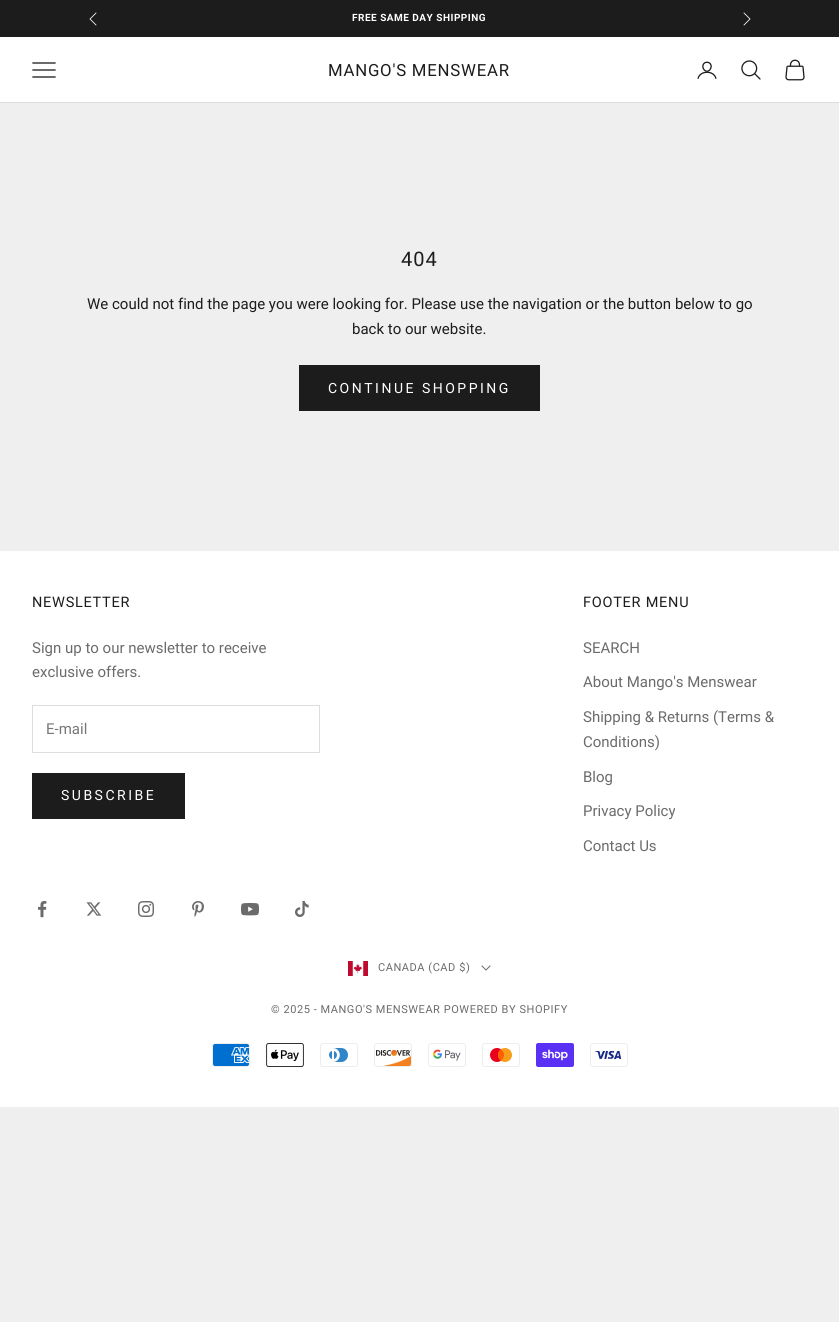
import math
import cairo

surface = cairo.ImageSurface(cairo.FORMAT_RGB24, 839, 1322)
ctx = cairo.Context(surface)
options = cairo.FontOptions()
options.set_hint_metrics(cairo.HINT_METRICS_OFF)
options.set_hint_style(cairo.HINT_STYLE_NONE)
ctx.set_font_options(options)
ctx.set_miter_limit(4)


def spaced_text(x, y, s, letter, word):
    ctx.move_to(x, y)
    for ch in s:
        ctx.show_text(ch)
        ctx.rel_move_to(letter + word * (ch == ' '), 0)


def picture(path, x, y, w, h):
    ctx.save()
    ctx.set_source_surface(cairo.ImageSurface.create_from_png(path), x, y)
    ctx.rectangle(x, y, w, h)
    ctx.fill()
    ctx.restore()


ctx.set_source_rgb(0.937, 0.937, 0.937)
ctx.paint()
ctx.set_source_rgb(0.11, 0.11, 0.11)
ctx.rectangle(0, 0, 839, 37)
ctx.fill()
ctx.new_path()
ctx.move_to(96, 13)
ctx.line_to(90, 19)
ctx.line_to(96, 25)
ctx.set_source_rgb(1, 1, 1)
ctx.set_line_width(0.8)
ctx.set_line_cap(cairo.LINE_CAP_SQUARE)
ctx.stroke()
ctx.select_font_face("Roboto", cairo.FONT_SLANT_NORMAL, cairo.FONT_WEIGHT_BOLD)
ctx.set_font_size(10)
spaced_text(352, 21, "FREE SAME DAY SHIPPING", 0.5, 0)
ctx.new_path()
ctx.move_to(744, 25)
ctx.line_to(750, 19)
ctx.line_to(744, 13)
ctx.stroke()
ctx.rectangle(0, 37, 839, 65)
ctx.fill()
ctx.set_source_rgb(0.867, 0.867, 0.867)
ctx.rectangle(0, 102, 839, 1)
ctx.fill()
ctx.new_path()
ctx.move_to(33, 77)
ctx.line_to(55, 77)
ctx.move_to(33, 70)
ctx.line_to(55, 70)
ctx.move_to(33, 63)
ctx.line_to(55, 63)
ctx.set_source_rgb(0.11, 0.11, 0.11)
ctx.set_line_width(1.3)
ctx.stroke()
ctx.select_font_face("Roboto")
ctx.set_font_size(16.75)
spaced_text(328, 76, "MANGO'S MENSWEAR", 0.8, 0)
picture("img1.png", 697, 61, 20, 18)
picture("img2.png", 741, 60, 20, 20)
picture("img3.png", 785, 59, 20, 22)
ctx.set_font_size(20)
spaced_text(401, 266, "404", 1, 0)
ctx.set_font_size(15)
ctx.move_to(87, 309)
ctx.show_text("We could not find the page you were looking for. Please use the navigation or the button below to go")
ctx.move_to(352, 334)
ctx.show_text("back to our website.")
ctx.rectangle(299.5, 365.5, 240, 45)
ctx.fill_preserve()
ctx.set_line_width(1)
ctx.set_line_cap(cairo.LINE_CAP_BUTT)
ctx.stroke()
ctx.set_font_size(14)
ctx.set_source_rgb(1, 1, 1)
spaced_text(328, 393, "CONTINUE SHOPPING", 2.5, 0)
ctx.rectangle(0, 551, 839, 556)
ctx.fill()
ctx.set_font_size(14.5)
ctx.set_source_rgb(0.11, 0.11, 0.11)
spaced_text(32, 607, "NEWSLETTER", 0.75, 0)
ctx.set_font_size(15)
ctx.set_source_rgb(0.42, 0.42, 0.42)
ctx.move_to(32, 653)
ctx.show_text("Sign up to our newsletter to receive")
ctx.move_to(32, 677)
ctx.show_text("exclusive offers.")
ctx.rectangle(32.5, 705.5, 287, 47)
ctx.set_source_rgb(0.867, 0.867, 0.867)
ctx.stroke()
ctx.set_source_rgb(0.467, 0.467, 0.467)
ctx.move_to(46, 734)
ctx.show_text("E-mail")
ctx.set_source_rgb(0.11, 0.11, 0.11)
ctx.rectangle(32.5, 773.5, 152, 45)
ctx.fill_preserve()
ctx.stroke()
ctx.set_font_size(14)
ctx.set_source_rgb(1, 1, 1)
spaced_text(61, 800, "SUBSCRIBE", 2.5, 0)
ctx.set_font_size(14.5)
ctx.set_source_rgb(0.11, 0.11, 0.11)
spaced_text(583, 607, "FOOTER MENU", 0.75, 0)
ctx.set_font_size(15)
ctx.set_source_rgb(0.42, 0.42, 0.42)
ctx.move_to(583, 653)
ctx.show_text("SEARCH")
ctx.move_to(583, 687)
ctx.show_text("About Mango's Menswear")
ctx.move_to(583, 722)
ctx.show_text("Shipping & Returns (Terms &")
ctx.move_to(583, 747)
ctx.show_text("Conditions)")
ctx.move_to(583, 782)
ctx.show_text("Blog")
ctx.move_to(583, 816)
ctx.show_text("Privacy Policy")
ctx.move_to(583, 851)
ctx.show_text("Contact Us")
picture("img4.png", 38, 901, 9, 17)
picture("img5.png", 86, 902, 16, 14)
picture("img6.png", 138, 901, 16, 16)
picture("img7.png", 192, 901, 12, 16)
picture("img8.png", 241, 903, 18, 13)
picture("img9.png", 295, 901, 14, 16)
picture("img10.png", 348, 961, 20, 15)
ctx.set_font_size(11)
spaced_text(378, 971, "CANADA (CAD $)", 0.55, 0)
ctx.new_path()
ctx.move_to(482, 966)
ctx.line_to(486, 970)
ctx.line_to(490, 966)
ctx.set_line_cap(cairo.LINE_CAP_SQUARE)
ctx.stroke()
spaced_text(271, 1013, "© 2025 - MANGO'S MENSWEAR POWERED BY SHOPIFY", 0.55, 0)
picture("img11.png", 212, 1043, 38, 24)
picture("img12.png", 266, 1043, 38, 24)
picture("img13.png", 320, 1043, 38, 24)
picture("img14.png", 374, 1043, 38, 24)
picture("img15.png", 428, 1043, 38, 24)
picture("img16.png", 482, 1043, 38, 24)
picture("img17.png", 536, 1043, 38, 24)
picture("img18.png", 590, 1043, 38, 24)
surface.write_to_png("page.png")
